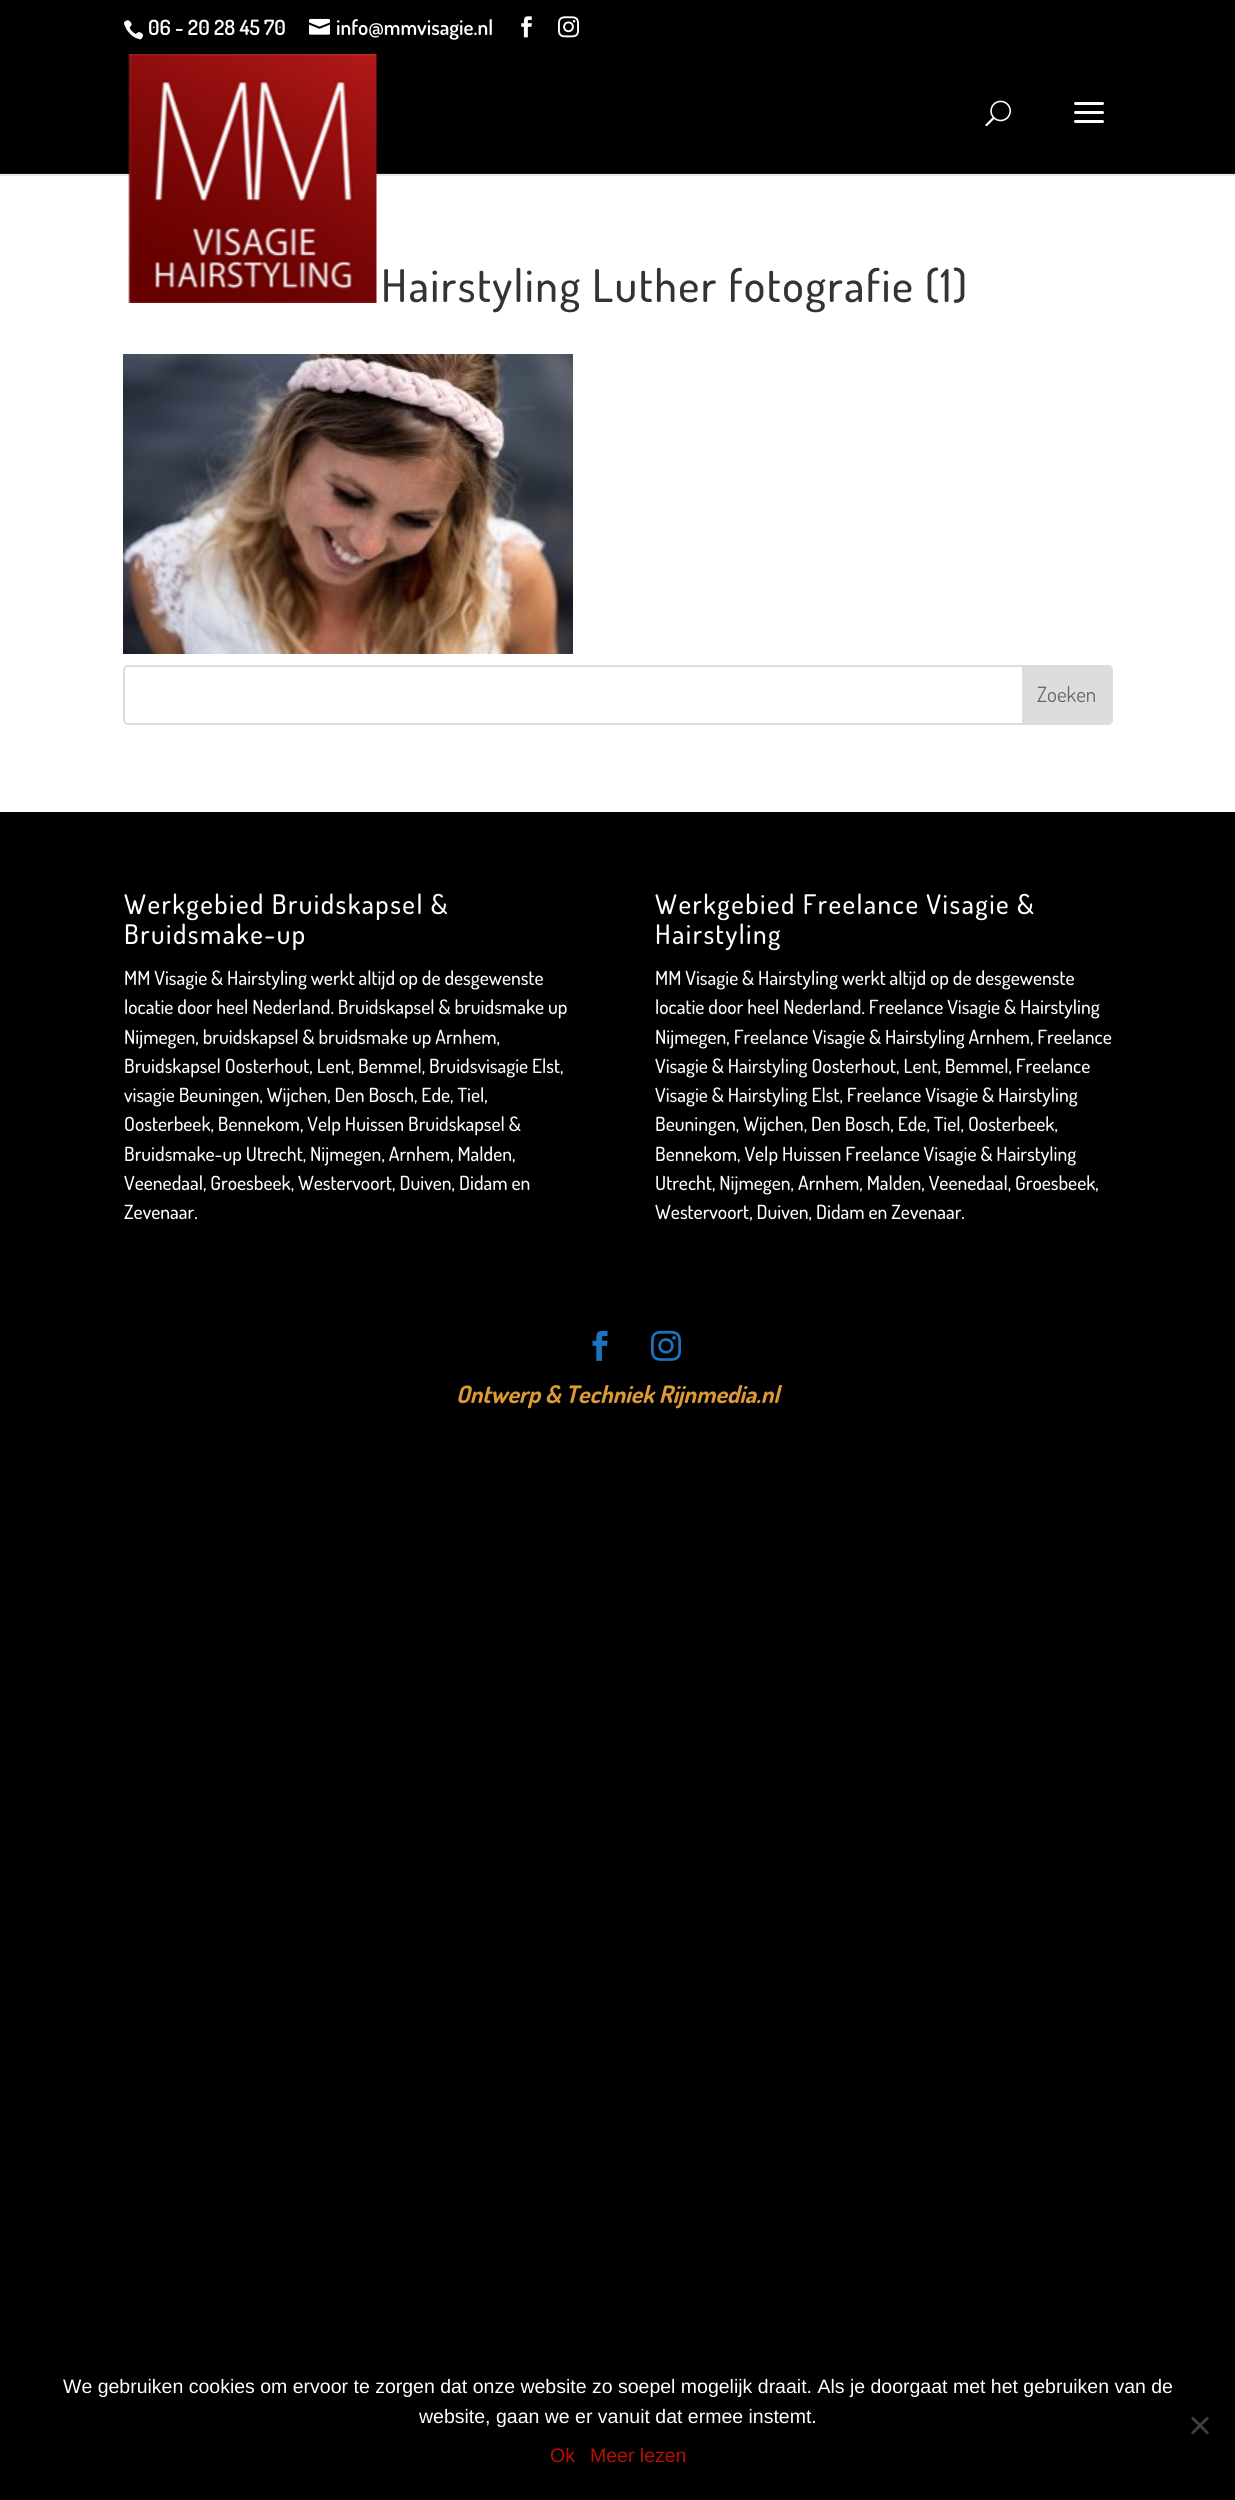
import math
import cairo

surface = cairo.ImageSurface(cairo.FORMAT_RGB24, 1235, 2500)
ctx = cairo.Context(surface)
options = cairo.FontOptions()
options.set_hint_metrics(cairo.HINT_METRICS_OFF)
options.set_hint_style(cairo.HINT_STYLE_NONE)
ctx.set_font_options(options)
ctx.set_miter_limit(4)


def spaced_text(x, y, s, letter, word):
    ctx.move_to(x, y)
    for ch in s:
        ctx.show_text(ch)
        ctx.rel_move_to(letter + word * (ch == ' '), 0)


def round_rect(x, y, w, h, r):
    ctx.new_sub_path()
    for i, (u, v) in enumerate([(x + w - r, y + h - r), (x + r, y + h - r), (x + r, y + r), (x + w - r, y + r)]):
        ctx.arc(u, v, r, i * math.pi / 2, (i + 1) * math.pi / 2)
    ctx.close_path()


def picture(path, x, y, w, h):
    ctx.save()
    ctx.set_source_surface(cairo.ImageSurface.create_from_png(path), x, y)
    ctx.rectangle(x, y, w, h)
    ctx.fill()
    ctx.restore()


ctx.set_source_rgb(0, 0, 0)
ctx.paint()
picture("img1.png", 123, 20, 21, 20)
ctx.select_font_face("Dosis SemiBold")
ctx.set_font_size(21)
ctx.set_source_rgb(1, 1, 1)
ctx.move_to(148, 35)
ctx.show_text("06 - 20 28 45 70")
picture("img2.png", 309, 18, 21, 17)
ctx.move_to(336, 35)
ctx.show_text("info@mmvisagie.nl")
picture("img3.png", 521, 16, 11, 22)
picture("img4.png", 558, 16, 21, 22)
ctx.set_source_rgb(0.902, 0.902, 0.902)
ctx.rectangle(0, 174, 1235, 2)
ctx.fill()
ctx.set_source_rgb(1, 1, 1)
ctx.rectangle(0, 176, 1235, 636)
ctx.fill()
ctx.set_source_rgb(0.098, 0.098, 0.098)
ctx.rectangle(0, 173, 1235, 1)
ctx.fill()
picture("img5.png", 128, 54, 249, 249)
picture("img6.png", 985, 100, 26, 27)
picture("img7.png", 1074, 102, 30, 21)
ctx.select_font_face("Dosis Medium")
ctx.set_font_size(45)
ctx.set_source_rgb(0.2, 0.2, 0.2)
spaced_text(381, 302, "Hairstyling Luther fotografie (1)", 1.5, 0)
picture("img8.png", 123, 354, 450, 300)
round_rect(124, 666, 988, 58, 4)
ctx.set_source_rgb(0.867, 0.867, 0.867)
ctx.stroke()
ctx.new_path()
ctx.move_to(1023, 666)
ctx.line_to(1108, 666)
ctx.curve_to(1110, 666, 1112, 668, 1112, 670)
ctx.line_to(1112, 720)
ctx.curve_to(1112, 722, 1110, 724, 1108, 724)
ctx.line_to(1023, 724)
ctx.close_path()
ctx.fill_preserve()
ctx.stroke()
ctx.select_font_face("Dosis")
ctx.set_font_size(21)
ctx.set_source_rgb(0.4, 0.4, 0.4)
ctx.move_to(1037, 702)
ctx.show_text("Zoeken")
ctx.select_font_face("Dosis Medium")
ctx.set_font_size(27)
ctx.set_source_rgb(1, 1, 1)
spaced_text(124, 914, "Werkgebied Bruidskapsel &", 1.5, 0)
spaced_text(124, 944, "Bruidsmake-up", 1.5, 0)
ctx.set_font_size(19.5)
ctx.move_to(124, 985)
ctx.show_text("MM Visagie & Hairstyling werkt altijd op de desgewenste")
ctx.move_to(124, 1014)
ctx.show_text("locatie door heel Nederland. Bruidskapsel & bruidsmake up")
ctx.move_to(124, 1044)
ctx.show_text("Nijmegen, bruidskapsel & bruidsmake up Arnhem,")
ctx.move_to(124, 1073)
ctx.show_text("Bruidskapsel Oosterhout, Lent, Bemmel, Bruidsvisagie Elst,")
ctx.move_to(124, 1102)
ctx.show_text("visagie Beuningen, Wijchen, Den Bosch, Ede, Tiel,")
ctx.move_to(124, 1131)
ctx.show_text("Oosterbeek, Bennekom, Velp Huissen Bruidskapsel &")
ctx.move_to(124, 1161)
ctx.show_text("Bruidsmake-up Utrecht, Nijmegen, Arnhem, Malden,")
ctx.move_to(124, 1190)
ctx.show_text("Veenedaal, Groesbeek, Westervoort, Duiven, Didam en")
ctx.move_to(124, 1219)
ctx.show_text("Zevenaar.")
ctx.set_font_size(27)
spaced_text(655, 914, "Werkgebied Freelance Visagie &", 1.5, 0)
spaced_text(655, 944, "Hairstyling", 1.5, 0)
ctx.set_font_size(19.5)
ctx.move_to(655, 985)
ctx.show_text("MM Visagie & Hairstyling werkt altijd op de desgewenste")
ctx.move_to(655, 1014)
ctx.show_text("locatie door heel Nederland. Freelance Visagie & Hairstyling")
ctx.move_to(655, 1044)
ctx.show_text("Nijmegen, Freelance Visagie & Hairstyling Arnhem, Freelance")
ctx.move_to(655, 1073)
ctx.show_text("Visagie & Hairstyling Oosterhout, Lent, Bemmel, Freelance")
ctx.move_to(655, 1102)
ctx.show_text("Visagie & Hairstyling Elst, Freelance Visagie & Hairstyling")
ctx.move_to(655, 1131)
ctx.show_text("Beuningen, Wijchen, Den Bosch, Ede, Tiel, Oosterbeek,")
ctx.move_to(655, 1161)
ctx.show_text("Bennekom, Velp Huissen Freelance Visagie & Hairstyling")
ctx.move_to(655, 1190)
ctx.show_text("Utrecht, Nijmegen, Arnhem, Malden, Veenedaal, Groesbeek,")
ctx.move_to(655, 1219)
ctx.show_text("Westervoort, Duiven, Didam en Zevenaar.")
picture("img9.png", 592, 1330, 16, 31)
picture("img10.png", 651, 1330, 30, 31)
ctx.select_font_face("Dosis", cairo.FONT_SLANT_ITALIC, cairo.FONT_WEIGHT_BOLD)
ctx.set_font_size(24)
ctx.set_source_rgb(0.867, 0.6, 0.2)
ctx.move_to(456, 1403)
ctx.show_text("Ontwerp & Techniek Rijnmedia.nl")
ctx.select_font_face("Liberation Sans")
ctx.set_font_size(19.5)
ctx.set_source_rgb(1, 1, 1)
ctx.move_to(63, 2393)
ctx.show_text("We gebruiken cookies om ervoor te zorgen dat onze website zo soepel mogelijk draait. Als je doorgaat met het gebruiken van de")
ctx.move_to(419, 2423)
ctx.show_text("website, gaan we er vanuit dat ermee instemt.")
ctx.set_source_rgb(0.251, 0.251, 0.251)
ctx.new_path()
ctx.move_to(1207, 2416.5)
ctx.line_to(1209, 2418.5)
ctx.line_to(1193, 2434.5)
ctx.line_to(1191, 2432.5)
ctx.close_path()
ctx.fill()
ctx.new_path()
ctx.move_to(1191, 2418.5)
ctx.line_to(1193, 2416.5)
ctx.line_to(1209, 2432.5)
ctx.line_to(1207, 2434.5)
ctx.close_path()
ctx.fill()
ctx.set_source_rgb(0.718, 0.059, 0.012)
ctx.move_to(550, 2462)
ctx.show_text("Ok")
ctx.move_to(590, 2462)
ctx.show_text("Meer lezen")
surface.write_to_png("page.png")
